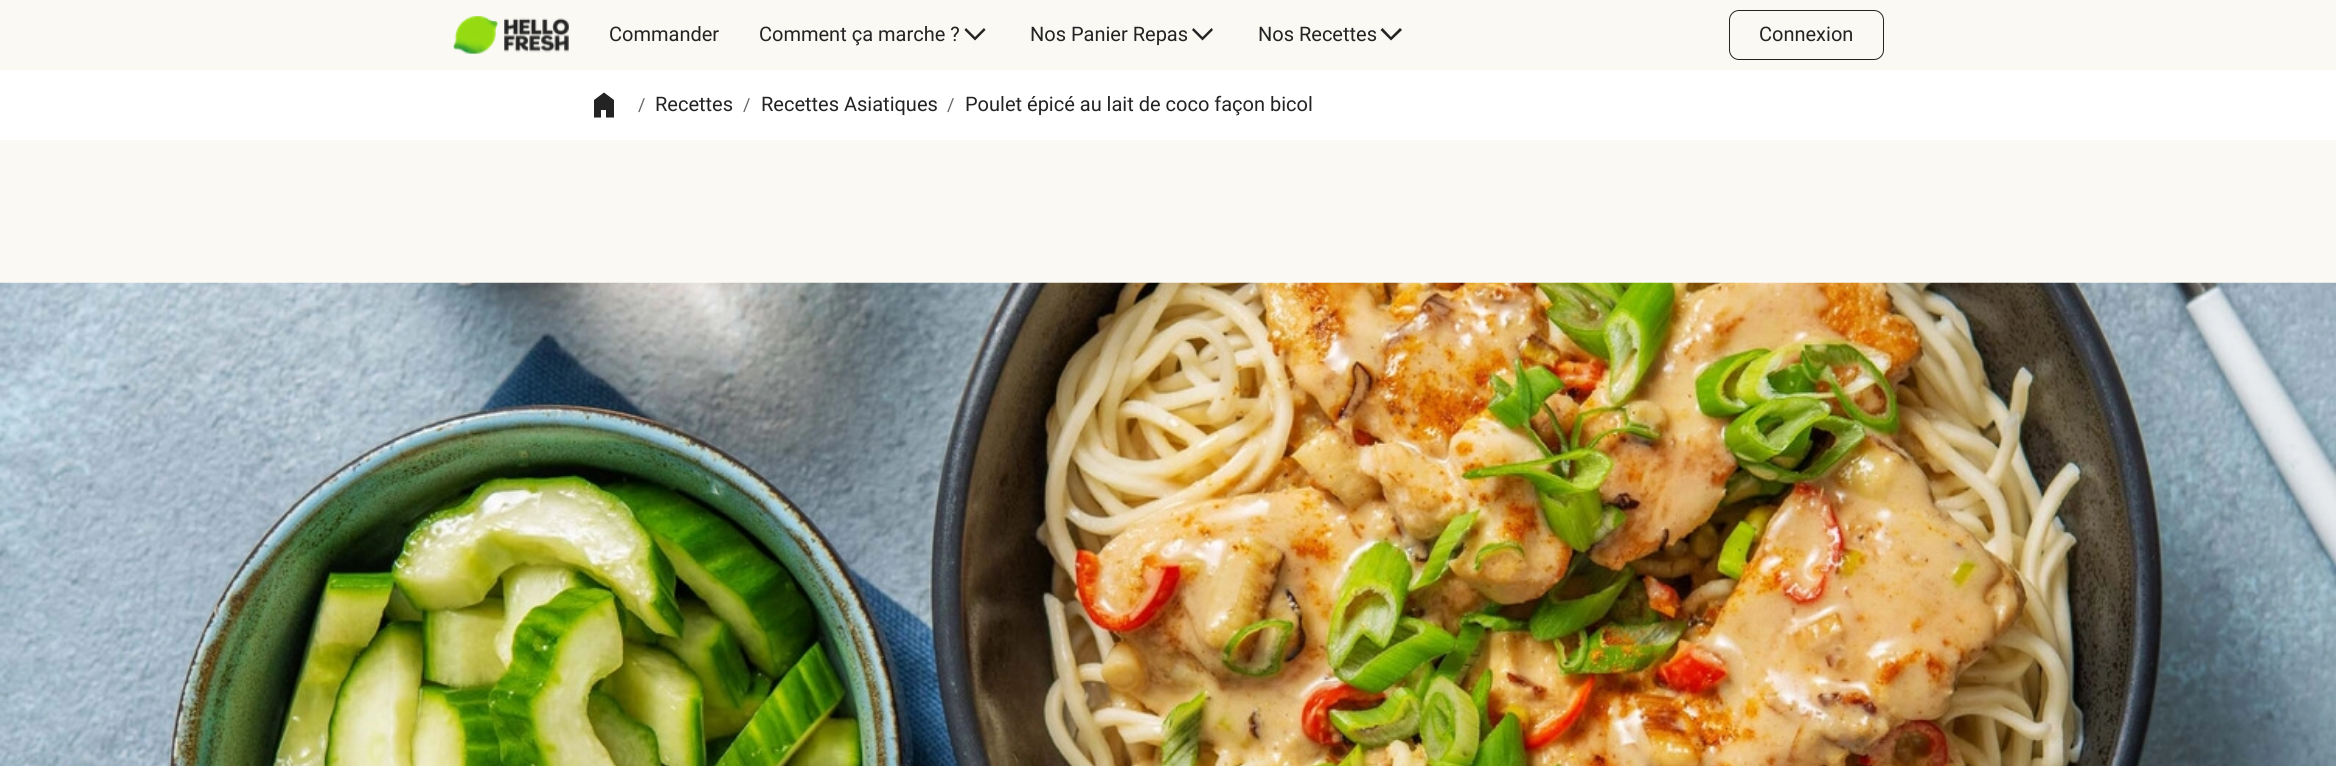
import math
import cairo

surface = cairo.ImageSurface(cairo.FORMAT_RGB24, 2336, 766)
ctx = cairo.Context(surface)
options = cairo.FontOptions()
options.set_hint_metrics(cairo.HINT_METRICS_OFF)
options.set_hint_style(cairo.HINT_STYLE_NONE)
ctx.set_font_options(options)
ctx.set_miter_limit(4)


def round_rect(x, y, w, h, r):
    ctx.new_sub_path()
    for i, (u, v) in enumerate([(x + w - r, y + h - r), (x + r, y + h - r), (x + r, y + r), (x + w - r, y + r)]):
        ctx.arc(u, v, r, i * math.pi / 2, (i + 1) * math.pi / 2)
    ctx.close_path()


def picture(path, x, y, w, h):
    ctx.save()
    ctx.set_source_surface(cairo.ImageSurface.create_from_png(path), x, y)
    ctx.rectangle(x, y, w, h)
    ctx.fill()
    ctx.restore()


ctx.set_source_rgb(0.98, 0.973, 0.953)
ctx.paint()
picture("img1.png", 453, 16, 116, 38)
ctx.select_font_face("Roboto")
ctx.set_font_size(20)
ctx.set_source_rgb(0.137, 0.137, 0.137)
ctx.move_to(609, 41)
ctx.show_text("Commander")
ctx.move_to(759, 41)
ctx.show_text("Comment ça marche ?")
ctx.set_source_rgb(0.141, 0.141, 0.141)
ctx.set_fill_rule(cairo.FILL_RULE_EVEN_ODD)
ctx.new_path()
ctx.move_to(975, 40.5)
ctx.line_to(985.5, 30)
ctx.line_to(984, 28)
ctx.line_to(975, 37)
ctx.line_to(966, 28)
ctx.line_to(964.5, 30)
ctx.close_path()
ctx.fill()
ctx.set_source_rgb(0.137, 0.137, 0.137)
ctx.move_to(1030, 41)
ctx.show_text("Nos Panier Repas")
ctx.set_source_rgb(0.141, 0.141, 0.141)
ctx.new_path()
ctx.move_to(1202.5, 40.5)
ctx.line_to(1213, 30)
ctx.line_to(1211.5, 28)
ctx.line_to(1202.5, 37)
ctx.line_to(1193.5, 28)
ctx.line_to(1192, 30)
ctx.close_path()
ctx.fill()
ctx.set_source_rgb(0.137, 0.137, 0.137)
ctx.move_to(1258, 41)
ctx.show_text("Nos Recettes")
ctx.set_source_rgb(0.141, 0.141, 0.141)
ctx.new_path()
ctx.move_to(1391, 40.5)
ctx.line_to(1402, 30)
ctx.line_to(1400, 28)
ctx.line_to(1391, 37)
ctx.line_to(1382.5, 28)
ctx.line_to(1380.5, 30)
ctx.close_path()
ctx.fill()
round_rect(1729.5, 10.5, 154, 49, 9.5)
ctx.set_source_rgb(0.137, 0.137, 0.137)
ctx.set_line_width(1)
ctx.stroke()
ctx.move_to(1759, 41)
ctx.show_text("Connexion")
ctx.set_source_rgb(1, 1, 1)
ctx.rectangle(0, 70, 2336, 70)
ctx.fill()
ctx.set_source_rgb(0.137, 0.137, 0.137)
ctx.set_fill_rule(cairo.FILL_RULE_WINDING)
ctx.new_path()
ctx.move_to(604, 92.5)
ctx.line_to(614, 100)
ctx.line_to(614, 117.5)
ctx.line_to(606, 117.5)
ctx.line_to(606, 110)
ctx.line_to(601, 110)
ctx.line_to(601, 117.5)
ctx.line_to(594, 117.5)
ctx.line_to(594, 100)
ctx.close_path()
ctx.fill()
ctx.set_font_size(18)
ctx.set_source_rgb(0.396, 0.396, 0.396)
ctx.move_to(638, 111)
ctx.show_text("/")
ctx.set_font_size(20)
ctx.set_source_rgb(0.137, 0.137, 0.137)
ctx.move_to(655, 111)
ctx.show_text("Recettes")
ctx.set_font_size(18)
ctx.set_source_rgb(0.396, 0.396, 0.396)
ctx.move_to(743, 111)
ctx.show_text("/")
ctx.set_font_size(20)
ctx.set_source_rgb(0.137, 0.137, 0.137)
ctx.move_to(761, 111)
ctx.show_text("Recettes Asiatiques")
ctx.set_font_size(18)
ctx.set_source_rgb(0.396, 0.396, 0.396)
ctx.move_to(947, 111)
ctx.show_text("/")
ctx.set_font_size(20)
ctx.set_source_rgb(0.137, 0.137, 0.137)
ctx.move_to(965, 111)
ctx.show_text("Poulet épicé au lait de coco façon bicol")
picture("img2.png", 0, 282, 2336, 484)
surface.write_to_png("page.png")
